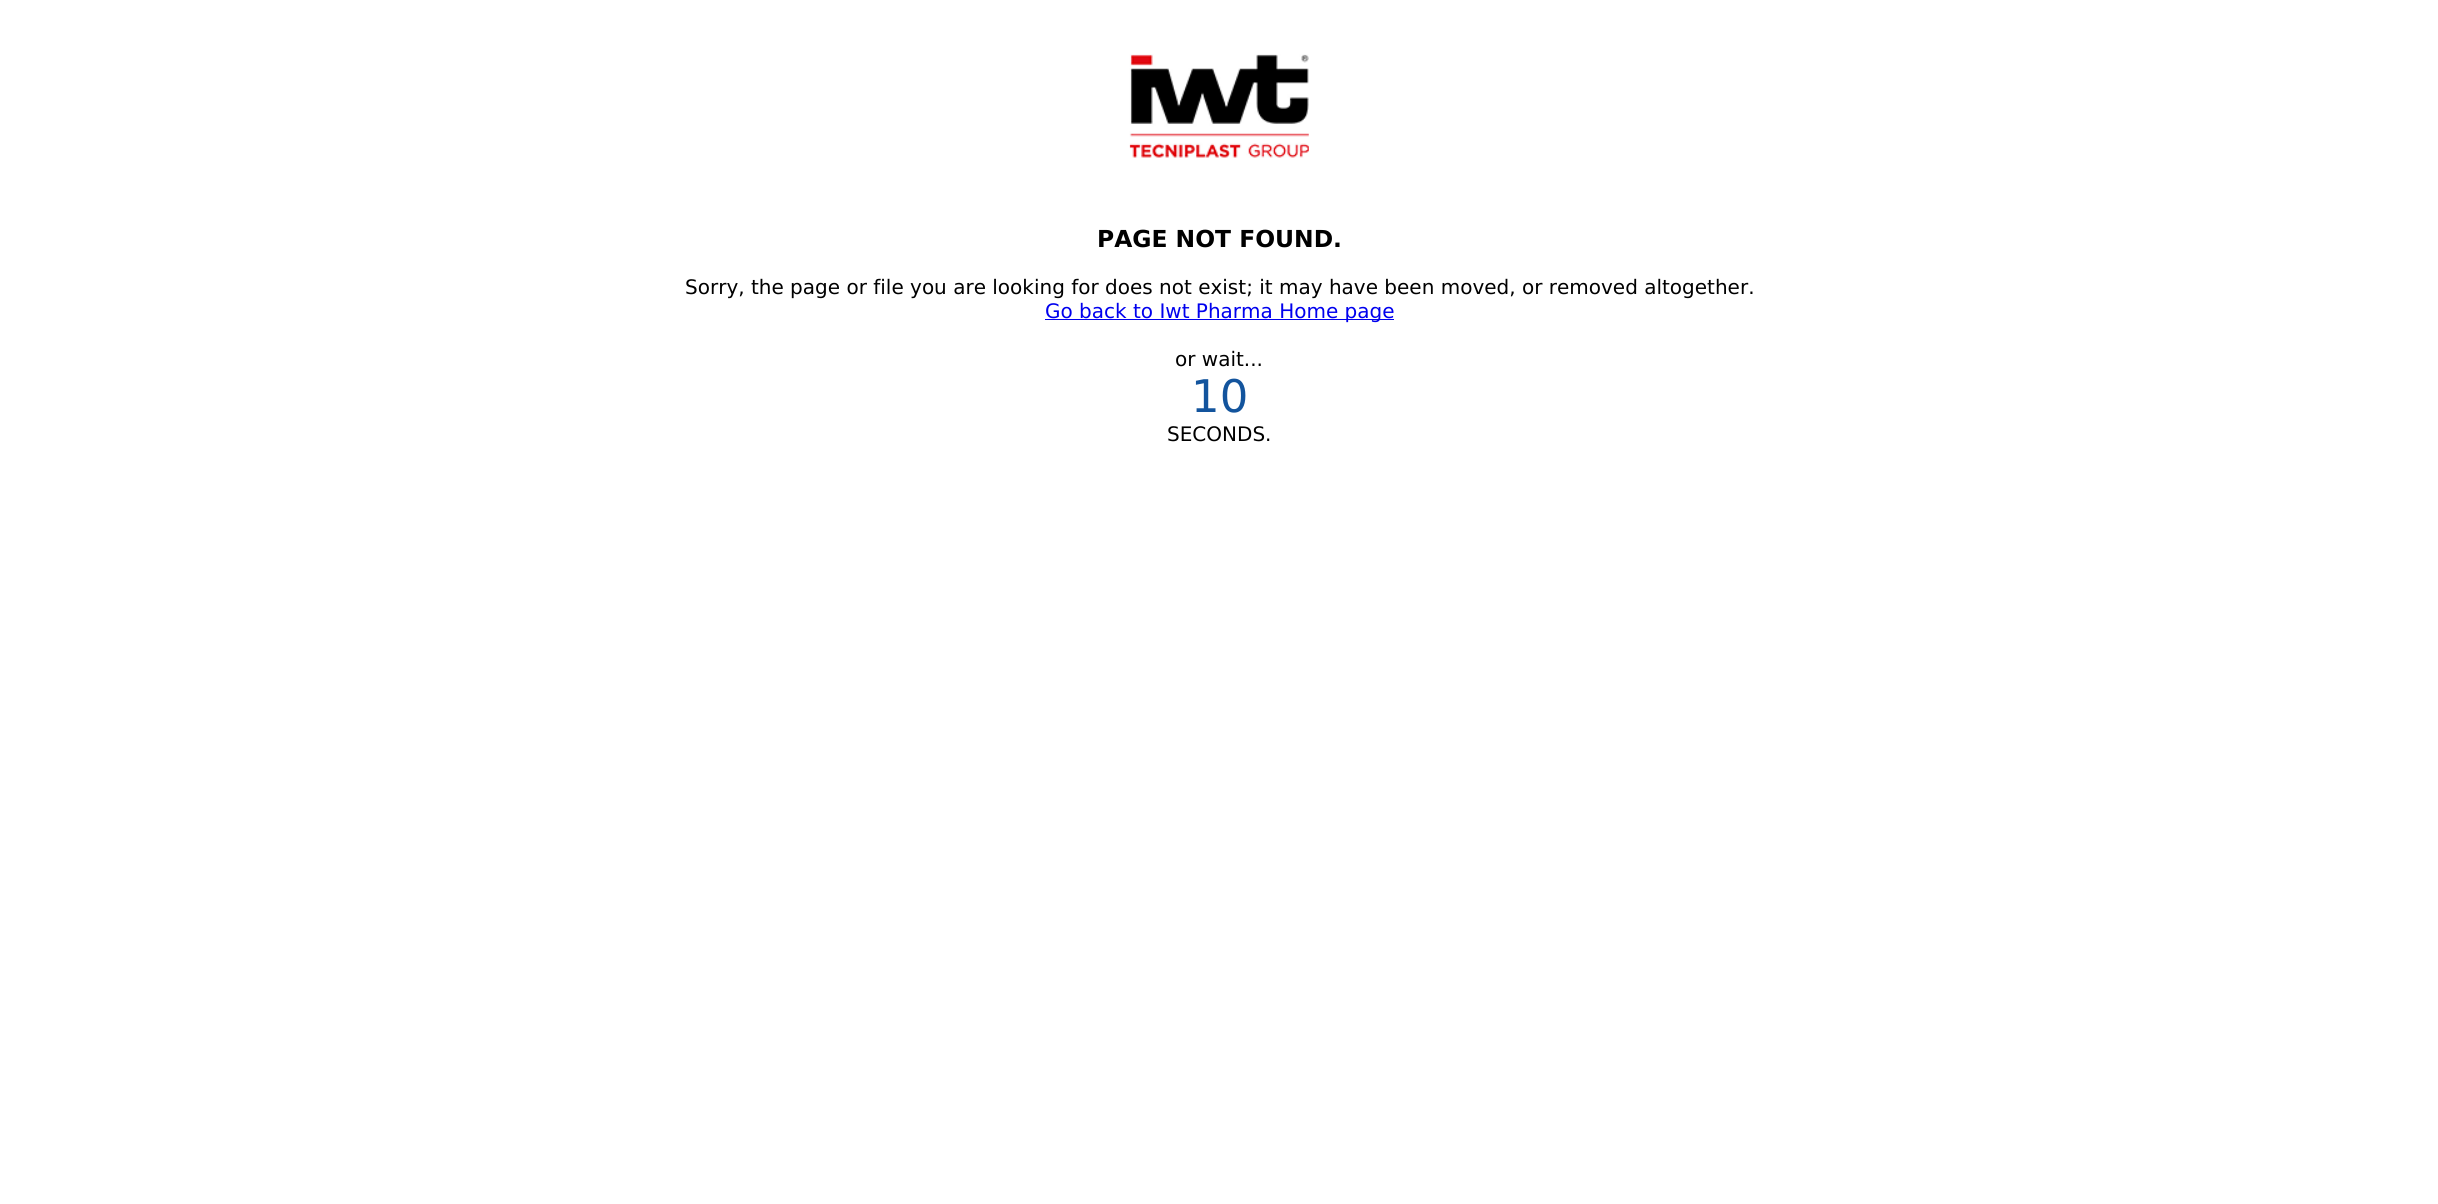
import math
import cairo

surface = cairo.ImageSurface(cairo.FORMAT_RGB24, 2438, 1204)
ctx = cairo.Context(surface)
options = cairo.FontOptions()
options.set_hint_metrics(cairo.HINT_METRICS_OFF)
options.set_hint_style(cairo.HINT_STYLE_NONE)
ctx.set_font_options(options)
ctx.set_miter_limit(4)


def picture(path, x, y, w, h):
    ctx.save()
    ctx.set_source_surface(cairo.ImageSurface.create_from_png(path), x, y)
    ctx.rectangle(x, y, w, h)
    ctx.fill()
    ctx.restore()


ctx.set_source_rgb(1, 1, 1)
ctx.paint()
picture("img1.png", 1129, 54, 180, 104)
ctx.select_font_face("DejaVu Sans", cairo.FONT_SLANT_NORMAL, cairo.FONT_WEIGHT_BOLD)
ctx.set_font_size(23.4)
ctx.set_source_rgb(0, 0, 0)
ctx.move_to(1097, 247)
ctx.show_text("PAGE NOT FOUND.")
ctx.select_font_face("DejaVu Sans")
ctx.set_font_size(20)
ctx.move_to(685, 294)
ctx.show_text("Sorry, the page or file you are looking for does not exist; it may have been moved, or removed altogether.")
ctx.set_source_rgb(0, 0, 0.933)
ctx.rectangle(1045, 319, 349, 1)
ctx.fill()
ctx.move_to(1045, 318)
ctx.show_text("Go back to Iwt Pharma Home page")
ctx.set_source_rgb(0, 0, 0)
ctx.move_to(1175, 366)
ctx.show_text("or wait...")
ctx.set_font_size(45)
ctx.set_source_rgb(0.078, 0.329, 0.616)
ctx.move_to(1191, 412)
ctx.show_text("10")
ctx.set_font_size(20)
ctx.set_source_rgb(0, 0, 0)
ctx.move_to(1167, 441)
ctx.show_text("SECONDS.")
surface.write_to_png("page.png")
